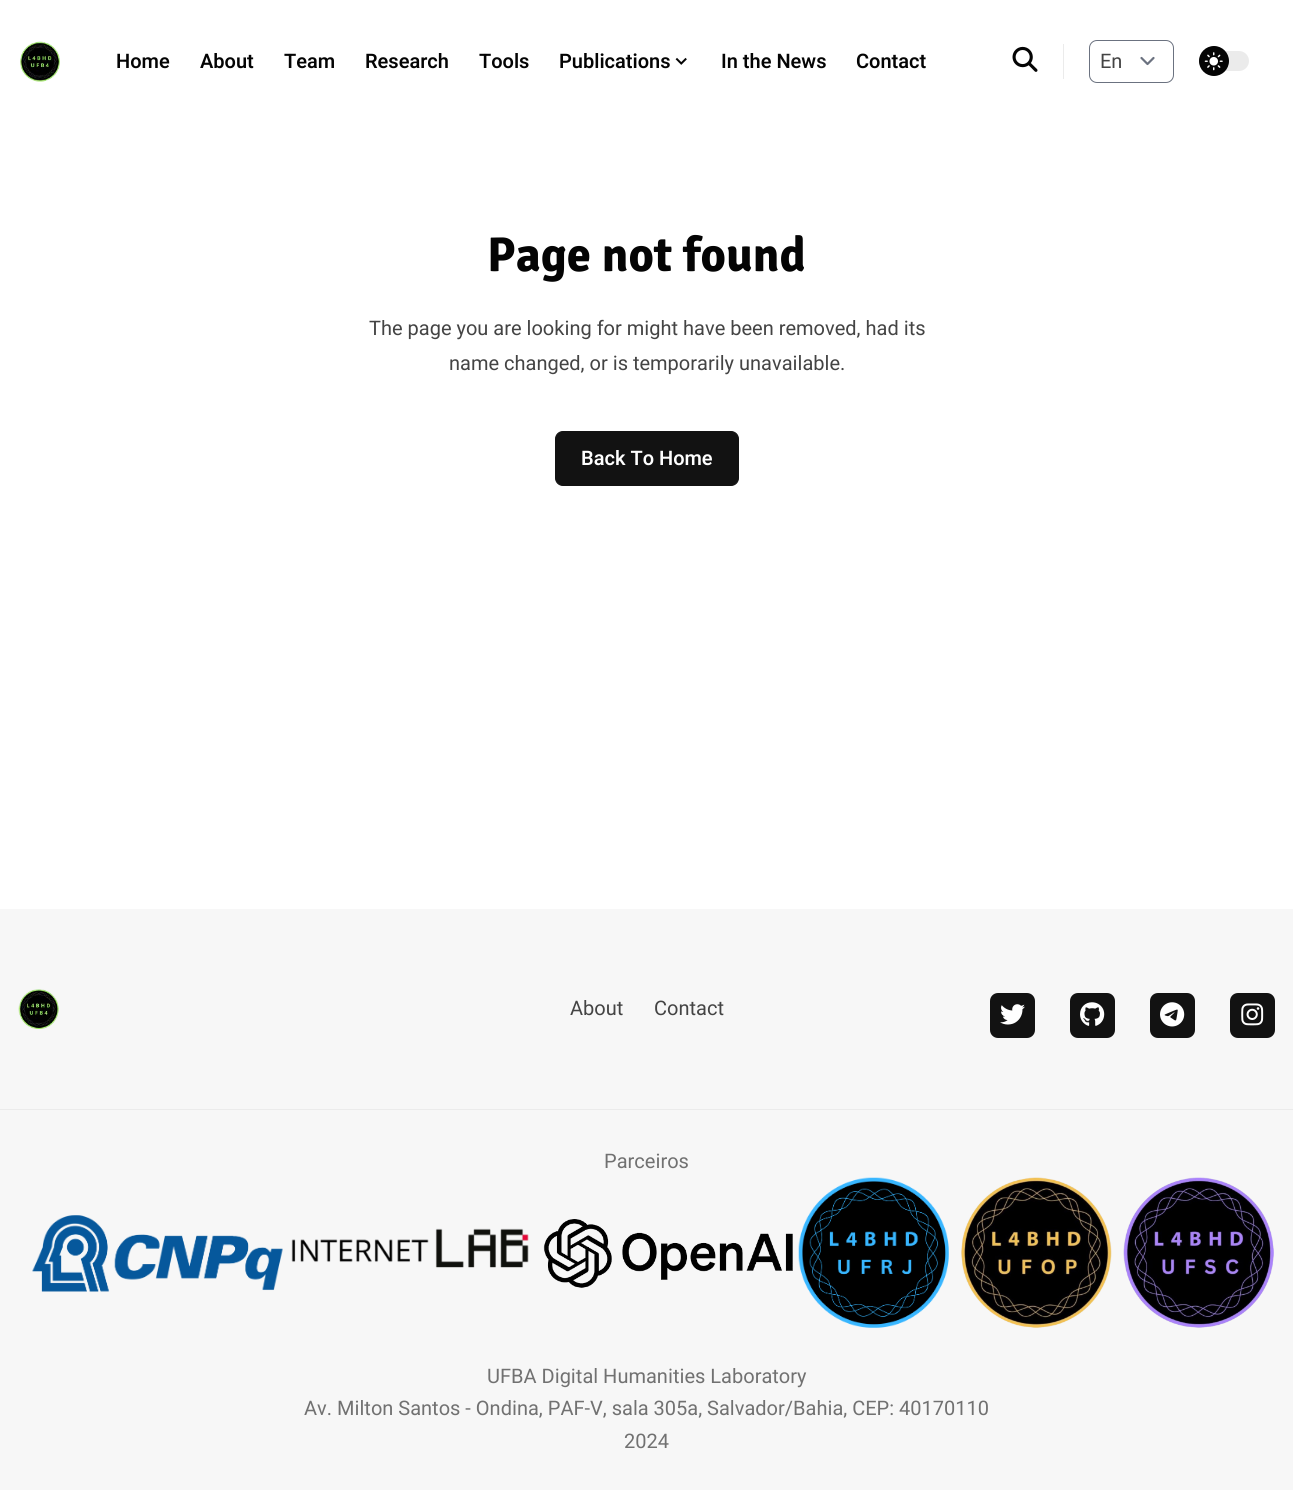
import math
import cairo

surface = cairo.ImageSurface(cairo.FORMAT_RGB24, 1293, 1490)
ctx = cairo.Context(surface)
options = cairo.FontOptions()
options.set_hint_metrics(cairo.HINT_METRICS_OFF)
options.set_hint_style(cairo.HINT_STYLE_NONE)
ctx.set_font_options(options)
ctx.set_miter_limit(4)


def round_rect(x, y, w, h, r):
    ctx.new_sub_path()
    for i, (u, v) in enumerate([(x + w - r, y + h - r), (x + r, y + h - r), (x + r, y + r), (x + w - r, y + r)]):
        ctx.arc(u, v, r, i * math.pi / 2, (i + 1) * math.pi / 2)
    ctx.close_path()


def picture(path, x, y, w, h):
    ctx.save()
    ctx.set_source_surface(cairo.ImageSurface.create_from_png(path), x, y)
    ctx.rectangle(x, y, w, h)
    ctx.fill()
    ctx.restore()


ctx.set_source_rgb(1, 1, 1)
ctx.paint()
picture("img1.png", 20, 41, 40, 41)
ctx.select_font_face("Heebo SemiBold")
ctx.set_font_size(20)
ctx.set_source_rgb(0.016, 0.016, 0.016)
ctx.move_to(116, 68)
ctx.show_text("Home")
ctx.move_to(200, 68)
ctx.show_text("About")
ctx.move_to(284, 68)
ctx.show_text("Team")
ctx.move_to(365, 68)
ctx.show_text("Research")
ctx.move_to(479, 68)
ctx.show_text("Tools")
ctx.move_to(559, 68)
ctx.show_text("Publications")
picture("img2.png", 675, 57, 12, 8)
ctx.move_to(721, 68)
ctx.show_text("In the News")
ctx.move_to(856, 68)
ctx.show_text("Contact")
ctx.set_source_rgb(0.918, 0.918, 0.918)
ctx.rectangle(1063, 44, 1, 35)
ctx.fill()
picture("img3.png", 1012, 46, 26, 26)
ctx.new_path()
ctx.move_to(1141.5, 58)
ctx.line_to(1147.5, 64)
ctx.line_to(1153.5, 58)
ctx.set_source_rgb(0.42, 0.447, 0.502)
ctx.set_line_width(2.2)
ctx.set_line_cap(cairo.LINE_CAP_ROUND)
ctx.set_line_join(cairo.LINE_JOIN_ROUND)
ctx.stroke()
round_rect(1089.5, 40.5, 84, 42, 7.5)
ctx.set_line_width(1)
ctx.set_line_cap(cairo.LINE_CAP_BUTT)
ctx.set_line_join(cairo.LINE_JOIN_MITER)
ctx.stroke()
ctx.select_font_face("Heebo")
ctx.set_source_rgb(0.267, 0.267, 0.267)
ctx.move_to(1100, 68)
ctx.show_text("En")
ctx.set_source_rgb(0.918, 0.918, 0.918)
round_rect(1199, 51, 50, 20, 10)
ctx.fill()
ctx.set_source_rgb(0.016, 0.016, 0.016)
ctx.arc(1214, 61, 15, 0, 2 * math.pi)
ctx.fill()
picture("img4.png", 1204, 52, 19, 19)
ctx.select_font_face("Signika", cairo.FONT_SLANT_NORMAL, cairo.FONT_WEIGHT_BOLD)
ctx.set_font_size(48.75)
ctx.move_to(487, 271)
ctx.show_text("Page not found")
ctx.select_font_face("Heebo")
ctx.set_font_size(20)
ctx.set_source_rgb(0.267, 0.267, 0.267)
ctx.move_to(369, 335)
ctx.show_text("The page you are looking for might have been removed, had its")
ctx.move_to(449, 370)
ctx.show_text("name changed, or is temporarily unavailable.")
ctx.set_source_rgb(0.071, 0.071, 0.071)
round_rect(555.5, 431.5, 183, 54, 7.5)
ctx.fill_preserve()
ctx.stroke()
ctx.select_font_face("Heebo SemiBold")
ctx.set_source_rgb(1, 1, 1)
ctx.move_to(581, 465)
ctx.show_text("Back To Home")
ctx.set_source_rgb(0.965, 0.965, 0.965)
ctx.rectangle(0, 909, 1293, 581)
ctx.fill()
picture("img5.png", 18, 989, 41, 40)
ctx.select_font_face("Heebo")
ctx.set_source_rgb(0.267, 0.267, 0.267)
ctx.move_to(570, 1015)
ctx.show_text("About")
ctx.move_to(654, 1015)
ctx.show_text("Contact")
ctx.set_source_rgb(0.071, 0.071, 0.071)
round_rect(990, 993, 45, 45, 8)
ctx.fill()
picture("img6.png", 1000, 1004, 25, 21)
round_rect(1070, 993, 45, 45, 8)
ctx.fill()
picture("img7.png", 1080, 1002, 25, 24)
round_rect(1150, 993, 45, 45, 8)
ctx.fill()
picture("img8.png", 1160, 1002, 25, 25)
round_rect(1230, 993, 45, 45, 8)
ctx.fill()
picture("img9.png", 1241, 1003, 23, 23)
ctx.set_source_rgb(0.918, 0.918, 0.918)
ctx.rectangle(0, 1109, 1293, 1)
ctx.fill()
ctx.set_source_rgb(0.443, 0.443, 0.443)
ctx.move_to(604, 1168)
ctx.show_text("Parceiros")
picture("img10.png", 32, 1215, 251, 77)
picture("img11.png", 291, 1228, 238, 40)
picture("img12.png", 543, 1219, 250, 69)
picture("img13.png", 798, 1177, 151, 151)
picture("img14.png", 961, 1177, 151, 151)
picture("img15.png", 1123, 1177, 151, 151)
ctx.move_to(487, 1383)
ctx.show_text("UFBA Digital Humanities Laboratory")
ctx.move_to(304, 1415)
ctx.show_text("Av. Milton Santos - Ondina, PAF-V, sala 305a, Salvador/Bahia, CEP: 40170110")
ctx.move_to(624, 1448)
ctx.show_text("2024")
surface.write_to_png("page.png")
